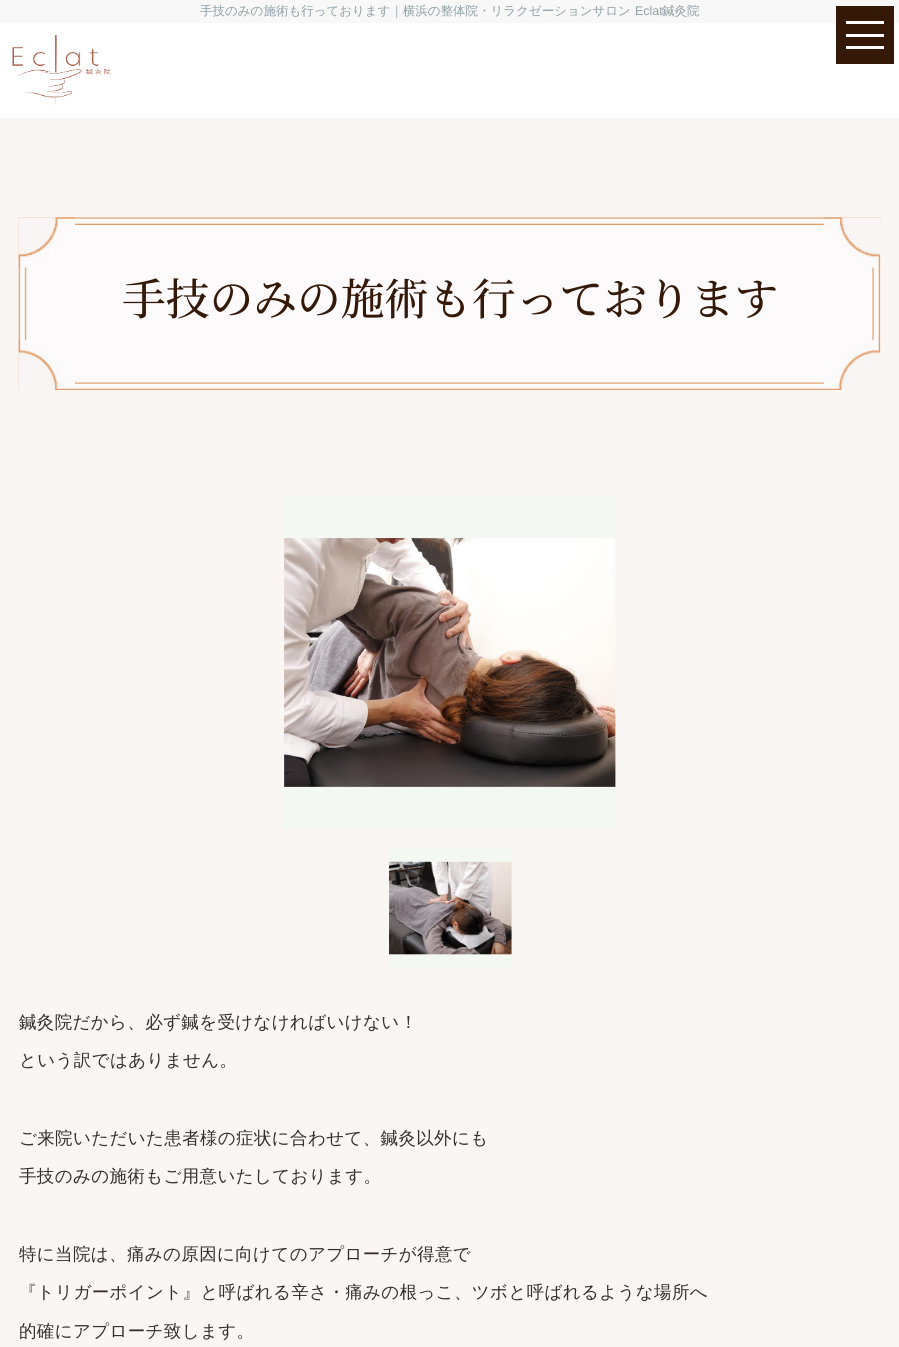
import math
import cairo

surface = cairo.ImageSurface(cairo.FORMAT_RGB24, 899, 1347)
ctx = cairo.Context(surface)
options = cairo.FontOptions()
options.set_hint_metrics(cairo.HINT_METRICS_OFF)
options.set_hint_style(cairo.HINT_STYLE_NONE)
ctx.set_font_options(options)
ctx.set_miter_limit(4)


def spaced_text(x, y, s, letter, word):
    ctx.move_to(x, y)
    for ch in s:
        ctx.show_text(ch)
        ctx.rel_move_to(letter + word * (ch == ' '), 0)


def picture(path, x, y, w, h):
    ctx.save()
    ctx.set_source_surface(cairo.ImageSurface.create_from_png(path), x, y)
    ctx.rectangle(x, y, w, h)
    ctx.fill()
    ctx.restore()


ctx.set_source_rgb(0.976, 0.961, 0.957)
ctx.paint()
ctx.set_source_rgb(0.969, 0.969, 0.969)
ctx.rectangle(0, 0, 899, 23)
ctx.fill()
ctx.select_font_face("WenQuanYi Zen Hei Medium")
ctx.set_font_size(12.5)
ctx.set_source_rgb(0.557, 0.624, 0.647)
ctx.move_to(200, 15)
ctx.show_text("手技のみの施術も行っております｜横浜の整体院・リラクゼーションサロン")
ctx.select_font_face("Liberation Sans")
ctx.move_to(635, 15)
ctx.show_text("Eclat")
ctx.select_font_face("WenQuanYi Zen Hei Medium")
ctx.move_to(662, 15)
ctx.show_text("鍼灸院")
ctx.set_source_rgb(1, 1, 1)
ctx.rectangle(0, 23, 899, 95)
ctx.fill()
ctx.set_source_rgb(0.208, 0.098, 0.035)
ctx.rectangle(836, 6, 58, 58)
ctx.fill()
ctx.set_source_rgb(1, 1, 1)
ctx.rectangle(846, 34, 38, 3)
ctx.fill()
ctx.rectangle(846, 21, 38, 3)
ctx.fill()
ctx.rectangle(846, 46, 38, 3)
ctx.fill()
picture("img1.png", 12, 35, 99, 70)
ctx.set_source_rgb(0.988, 0.98, 0.98)
ctx.rectangle(26, 225, 847, 158)
ctx.fill()
picture("img2.png", 18, 217, 864, 173)
ctx.select_font_face("Noto Serif JP Medium")
ctx.set_font_size(43.75)
ctx.set_source_rgb(0.208, 0.098, 0.035)
ctx.move_to(122, 315)
ctx.show_text("手技のみの施術も行っております")
ctx.set_source_rgb(0.957, 0.969, 0.949)
ctx.rectangle(284, 496, 332, 333)
ctx.fill()
picture("img3.png", 284, 538, 332, 249)
ctx.rectangle(389, 848, 122, 121)
ctx.fill()
picture("img4.png", 389, 861, 123, 94)
ctx.select_font_face("WenQuanYi Zen Hei Medium")
ctx.set_font_size(17.5)
ctx.set_source_rgb(0.208, 0.184, 0.165)
spaced_text(19, 1028, "鍼灸院だから、必ず鍼を受けなければいけない！", 0.35, 0)
spaced_text(19, 1066, "という訳ではありません。", 0.35, 0)
spaced_text(19, 1144, "ご来院いただいた患者様の症状に合わせて、鍼灸以外にも", 0.35, 0)
spaced_text(19, 1182, "手技のみの施術もご用意いたしております。", 0.35, 0)
spaced_text(19, 1260, "特に当院は、痛みの原因に向けてのアプローチが得意で", 0.35, 0)
spaced_text(19, 1298, "『トリガーポイント』と呼ばれる辛さ・痛みの根っこ、ツボと呼ばれるような場所へ", 0.35, 0)
spaced_text(19, 1337, "的確にアプローチ致します。", 0.35, 0)
surface.write_to_png("page.png")
